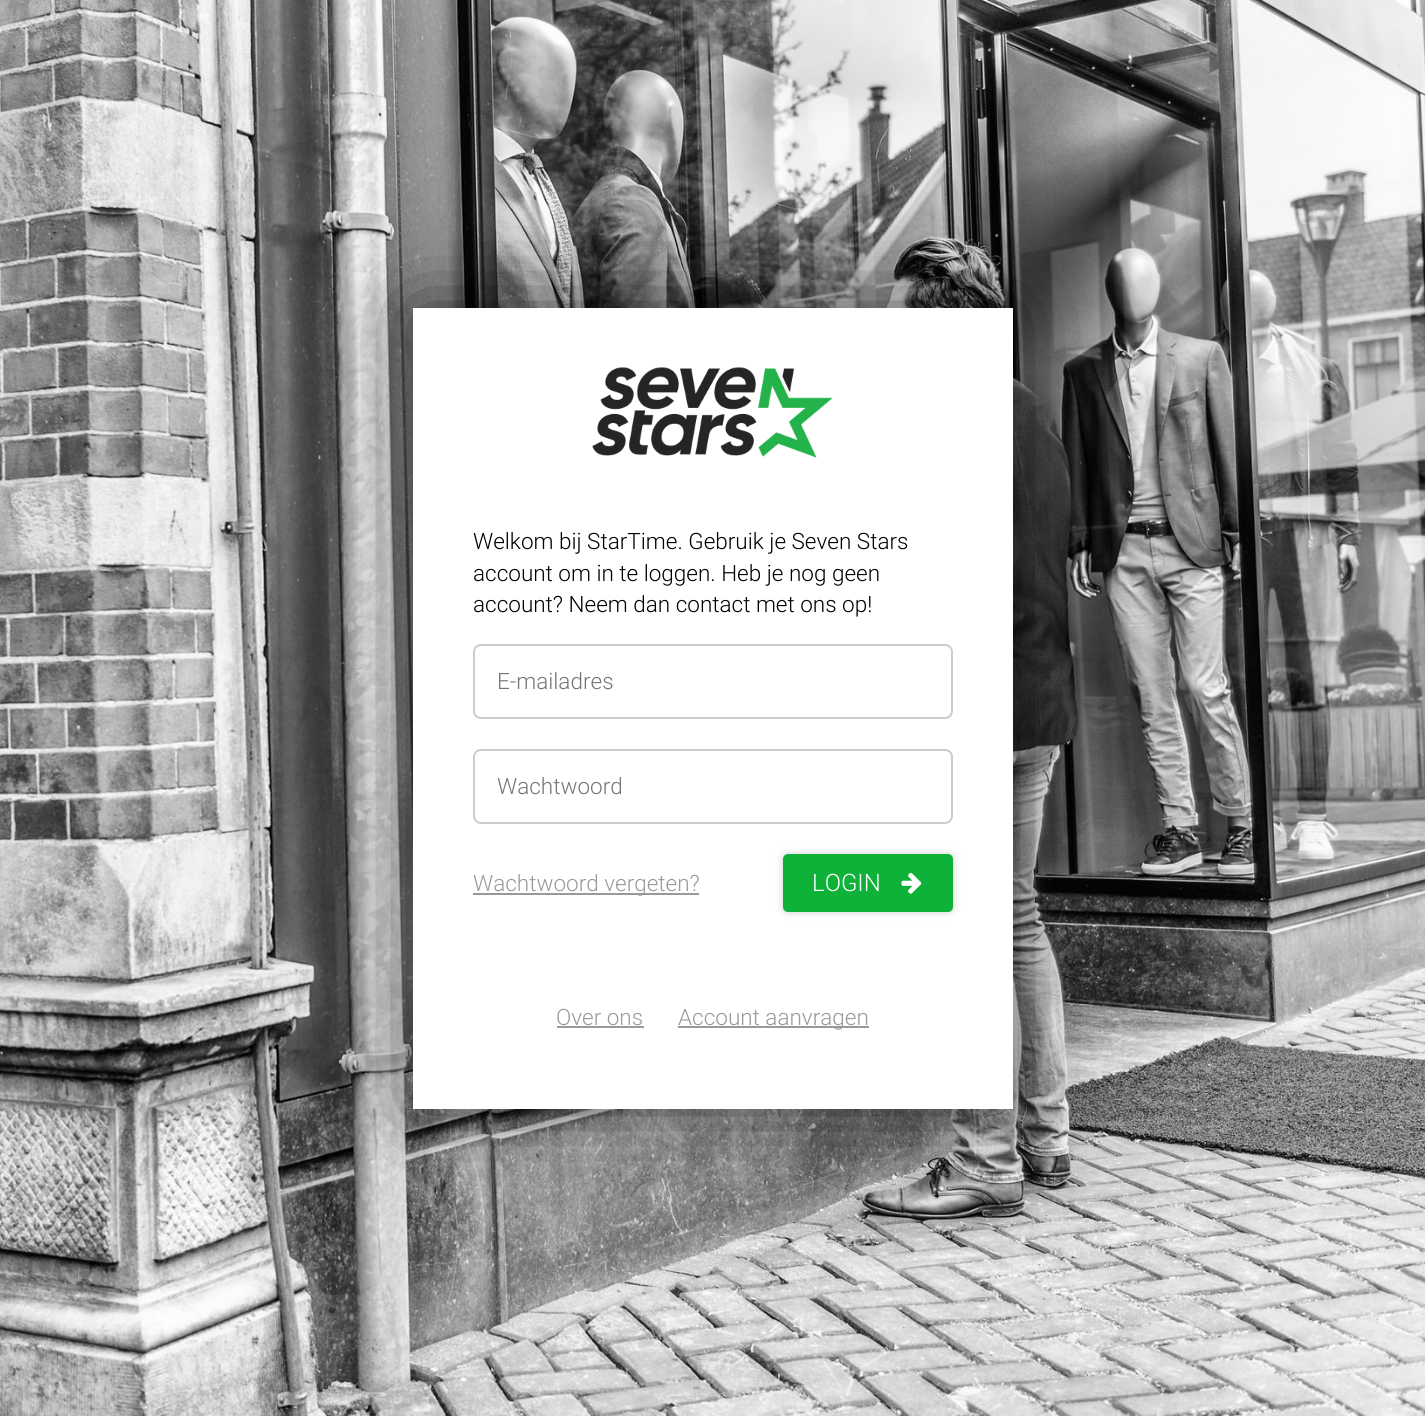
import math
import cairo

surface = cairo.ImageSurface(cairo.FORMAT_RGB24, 1425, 1416)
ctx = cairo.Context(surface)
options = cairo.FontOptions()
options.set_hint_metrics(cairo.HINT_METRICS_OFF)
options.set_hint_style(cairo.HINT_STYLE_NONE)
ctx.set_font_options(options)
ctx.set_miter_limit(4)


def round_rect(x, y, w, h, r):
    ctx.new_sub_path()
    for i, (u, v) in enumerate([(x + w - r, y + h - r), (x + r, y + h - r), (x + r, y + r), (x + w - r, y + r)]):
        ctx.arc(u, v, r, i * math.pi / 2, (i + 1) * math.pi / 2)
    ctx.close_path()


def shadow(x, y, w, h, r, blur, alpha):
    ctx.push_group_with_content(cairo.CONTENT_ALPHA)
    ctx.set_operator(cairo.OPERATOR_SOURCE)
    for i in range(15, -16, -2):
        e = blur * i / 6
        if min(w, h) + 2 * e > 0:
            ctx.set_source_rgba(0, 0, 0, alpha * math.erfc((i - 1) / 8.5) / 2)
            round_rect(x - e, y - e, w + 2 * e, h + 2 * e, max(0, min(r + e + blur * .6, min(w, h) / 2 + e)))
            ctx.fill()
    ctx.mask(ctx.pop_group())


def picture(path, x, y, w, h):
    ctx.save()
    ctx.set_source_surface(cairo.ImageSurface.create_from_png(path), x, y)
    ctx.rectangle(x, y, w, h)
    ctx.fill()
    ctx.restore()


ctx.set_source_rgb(1, 1, 1)
ctx.paint()
picture("img1.png", 0, 0, 1425, 1416)
ctx.set_source_rgb(0, 0, 0)
shadow(413, 308, 600, 801, 0, 45, 0.7)
ctx.set_source_rgb(1, 1, 1)
ctx.rectangle(413, 308, 600, 801)
ctx.fill()
picture("img2.png", 592, 367, 241, 91)
ctx.select_font_face("Roboto Light")
ctx.set_font_size(22.5)
ctx.set_source_rgb(0, 0, 0)
ctx.move_to(473, 549)
ctx.show_text("Welkom bij StarTime. Gebruik je Seven Stars")
ctx.move_to(473, 581)
ctx.show_text("account om in te loggen. Heb je nog geen")
ctx.move_to(473, 612)
ctx.show_text("account? Neem dan contact met ons op!")
round_rect(474, 645, 478, 73, 7)
ctx.set_source_rgb(0.8, 0.8, 0.8)
ctx.stroke()
ctx.set_source_rgb(0.459, 0.459, 0.459)
ctx.move_to(497, 689)
ctx.show_text("E-mailadres")
round_rect(474, 750, 478, 73, 7)
ctx.set_source_rgb(0.8, 0.8, 0.8)
ctx.stroke()
ctx.set_source_rgb(0.459, 0.459, 0.459)
ctx.move_to(497, 794)
ctx.show_text("Wachtwoord")
ctx.set_source_rgb(0.6, 0.6, 0.6)
ctx.rectangle(473, 893, 226, 2)
ctx.fill()
ctx.move_to(473, 891)
ctx.show_text("Wachtwoord vergeten?")
ctx.set_source_rgb(0, 0, 0)
shadow(783, 854, 170, 58, 5, 4, 0.2)
ctx.set_source_rgb(0.059, 0.698, 0.224)
round_rect(783, 854, 170, 58, 5)
ctx.fill()
ctx.set_font_size(24)
ctx.set_source_rgb(1, 1, 1)
ctx.move_to(812, 891)
ctx.show_text("LOGIN")
picture("img3.png", 901, 872, 21, 22)
ctx.set_font_size(22.5)
ctx.set_source_rgb(0.6, 0.6, 0.6)
ctx.move_to(556, 1025)
ctx.show_text("Over ons")
ctx.rectangle(557, 1026, 87, 2)
ctx.fill()
ctx.rectangle(678, 1026, 191, 2)
ctx.fill()
ctx.move_to(678, 1025)
ctx.show_text("Account aanvragen")
surface.write_to_png("page.png")
